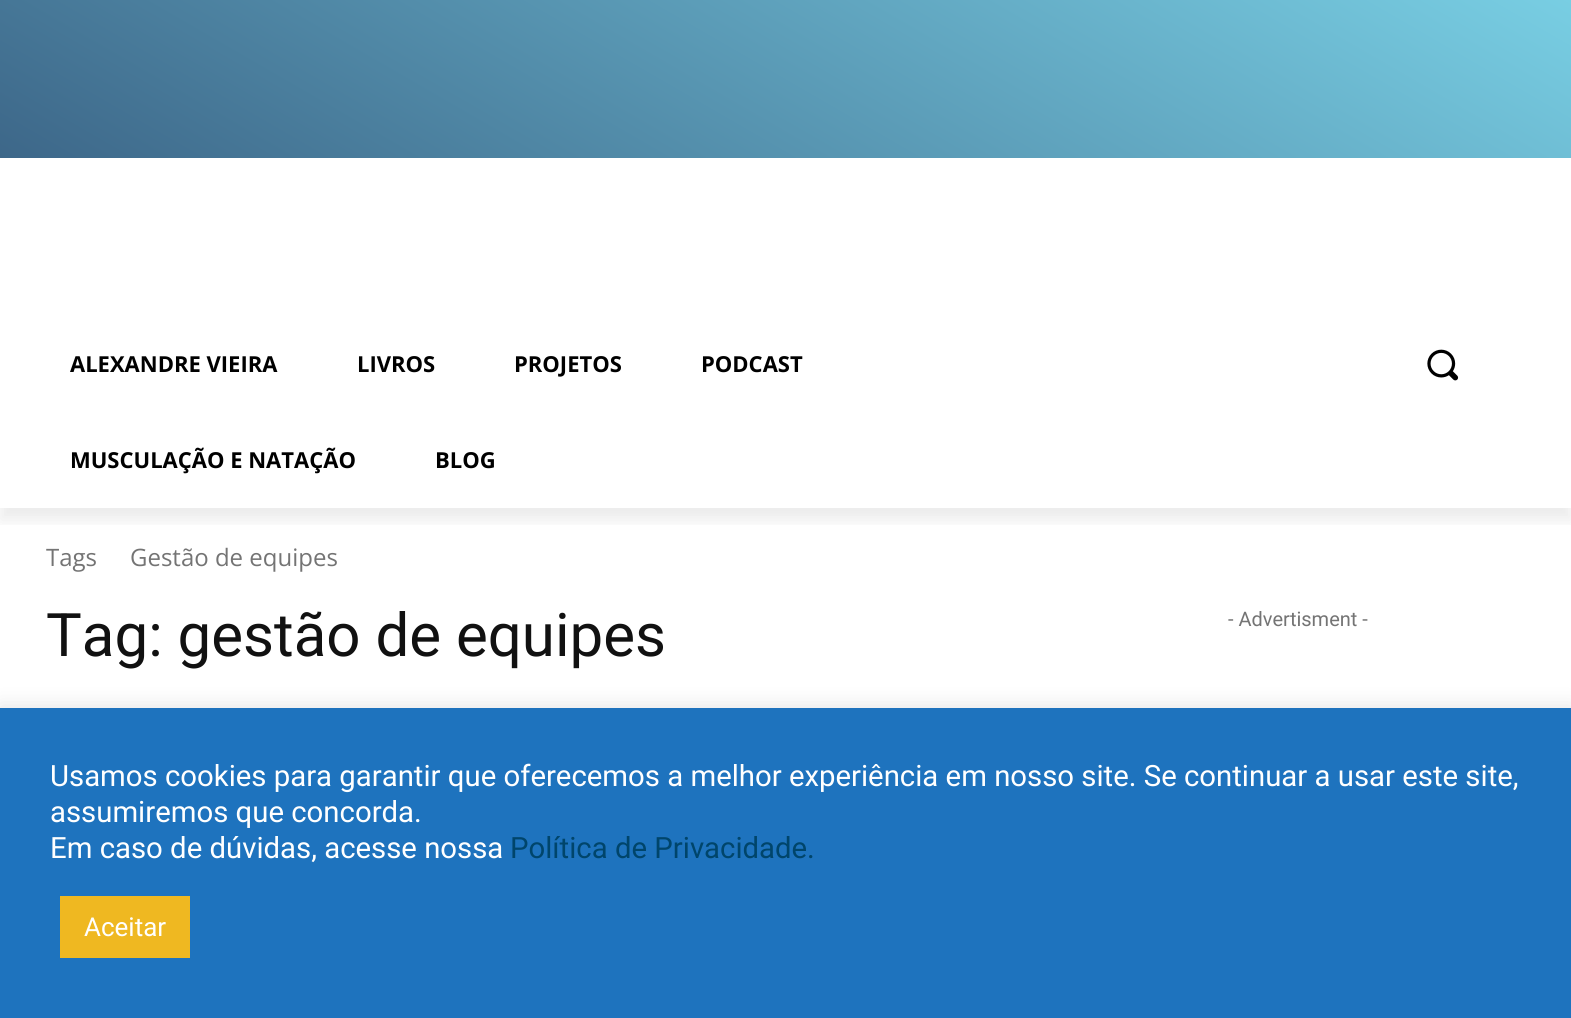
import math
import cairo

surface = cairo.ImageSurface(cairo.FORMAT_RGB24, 1571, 1018)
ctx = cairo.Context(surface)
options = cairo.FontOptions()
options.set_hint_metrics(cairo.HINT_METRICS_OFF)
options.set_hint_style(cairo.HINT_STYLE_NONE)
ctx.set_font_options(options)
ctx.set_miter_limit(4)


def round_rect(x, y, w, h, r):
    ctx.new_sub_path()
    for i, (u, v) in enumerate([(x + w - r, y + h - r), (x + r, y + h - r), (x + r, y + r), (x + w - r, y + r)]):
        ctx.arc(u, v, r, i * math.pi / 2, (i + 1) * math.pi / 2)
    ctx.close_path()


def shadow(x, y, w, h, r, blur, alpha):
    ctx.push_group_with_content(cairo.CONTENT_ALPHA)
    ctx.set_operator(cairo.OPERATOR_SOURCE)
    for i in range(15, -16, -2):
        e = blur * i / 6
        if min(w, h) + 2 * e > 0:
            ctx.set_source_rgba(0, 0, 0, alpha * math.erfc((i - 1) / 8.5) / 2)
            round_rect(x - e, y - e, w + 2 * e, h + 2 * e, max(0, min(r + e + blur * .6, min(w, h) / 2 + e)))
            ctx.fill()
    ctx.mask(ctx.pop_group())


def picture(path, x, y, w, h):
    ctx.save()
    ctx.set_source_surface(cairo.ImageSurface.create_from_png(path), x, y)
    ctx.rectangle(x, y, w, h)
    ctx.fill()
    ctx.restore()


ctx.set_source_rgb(1, 1, 1)
ctx.paint()
gradient = cairo.LinearGradient(555, 479, 1017, -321)
gradient.add_color_stop_rgba(0, 0.239, 0.404, 0.537, 1)
gradient.add_color_stop_rgba(1, 0.471, 0.808, 0.89, 1)
ctx.set_source(gradient)
ctx.rectangle(0, 0, 1571, 158)
ctx.fill()
ctx.save()
ctx.rectangle(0, 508, 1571, 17)
ctx.clip()
ctx.set_source_rgb(0, 0, 0)
shadow(0, 12, 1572, 508, 0, 8, 0.08)
ctx.restore()
ctx.select_font_face("Open Sans", cairo.FONT_SLANT_NORMAL, cairo.FONT_WEIGHT_BOLD)
ctx.set_font_size(22)
ctx.set_source_rgb(0, 0, 0)
ctx.move_to(70, 372)
ctx.show_text("ALEXANDRE VIEIRA")
ctx.move_to(357, 372)
ctx.show_text("LIVROS")
ctx.move_to(514, 372)
ctx.show_text("PROJETOS")
ctx.move_to(701, 372)
ctx.show_text("PODCAST")
ctx.move_to(70, 468)
ctx.show_text("MUSCULAÇÃO E NATAÇÃO")
ctx.move_to(435, 468)
ctx.show_text("BLOG")
picture("img1.png", 1427, 349, 32, 32)
ctx.select_font_face("Open Sans")
ctx.set_font_size(24)
ctx.set_source_rgb(0.455, 0.455, 0.455)
ctx.move_to(46, 566)
ctx.show_text("Tags")
ctx.move_to(130, 566)
ctx.show_text("Gestão de equipes")
ctx.select_font_face("Roboto")
ctx.set_font_size(60)
ctx.set_source_rgb(0.067, 0.067, 0.067)
ctx.move_to(46, 656)
ctx.show_text("Tag: gestão de equipes")
ctx.set_font_size(20)
ctx.set_source_rgb(0.455, 0.455, 0.455)
ctx.move_to(1228, 626)
ctx.show_text("- Advertisment -")
ctx.set_source_rgb(0.675, 0.671, 0.671)
shadow(0, 706, 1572, 310, 0, 10, 0.3)
ctx.set_source_rgb(0.118, 0.451, 0.745)
ctx.rectangle(0, 708, 1571, 310)
ctx.fill()
ctx.set_font_size(29.33)
ctx.set_source_rgb(1, 1, 1)
ctx.move_to(50, 786)
ctx.show_text("Usamos cookies para garantir que oferecemos a melhor experiência em nosso site. Se continuar a usar este site,")
ctx.move_to(50, 822)
ctx.show_text("assumiremos que concorda.")
ctx.move_to(50, 858)
ctx.show_text("Em caso de dúvidas, acesse nossa")
ctx.set_source_rgb(0, 0.271, 0.42)
ctx.move_to(510, 858)
ctx.show_text("Política de Privacidade.")
ctx.set_source_rgb(0.937, 0.722, 0.129)
ctx.rectangle(60, 896, 130, 62)
ctx.fill()
ctx.set_font_size(26)
ctx.set_source_rgb(1, 1, 1)
ctx.move_to(84, 936)
ctx.show_text("Aceitar")
surface.write_to_png("page.png")
